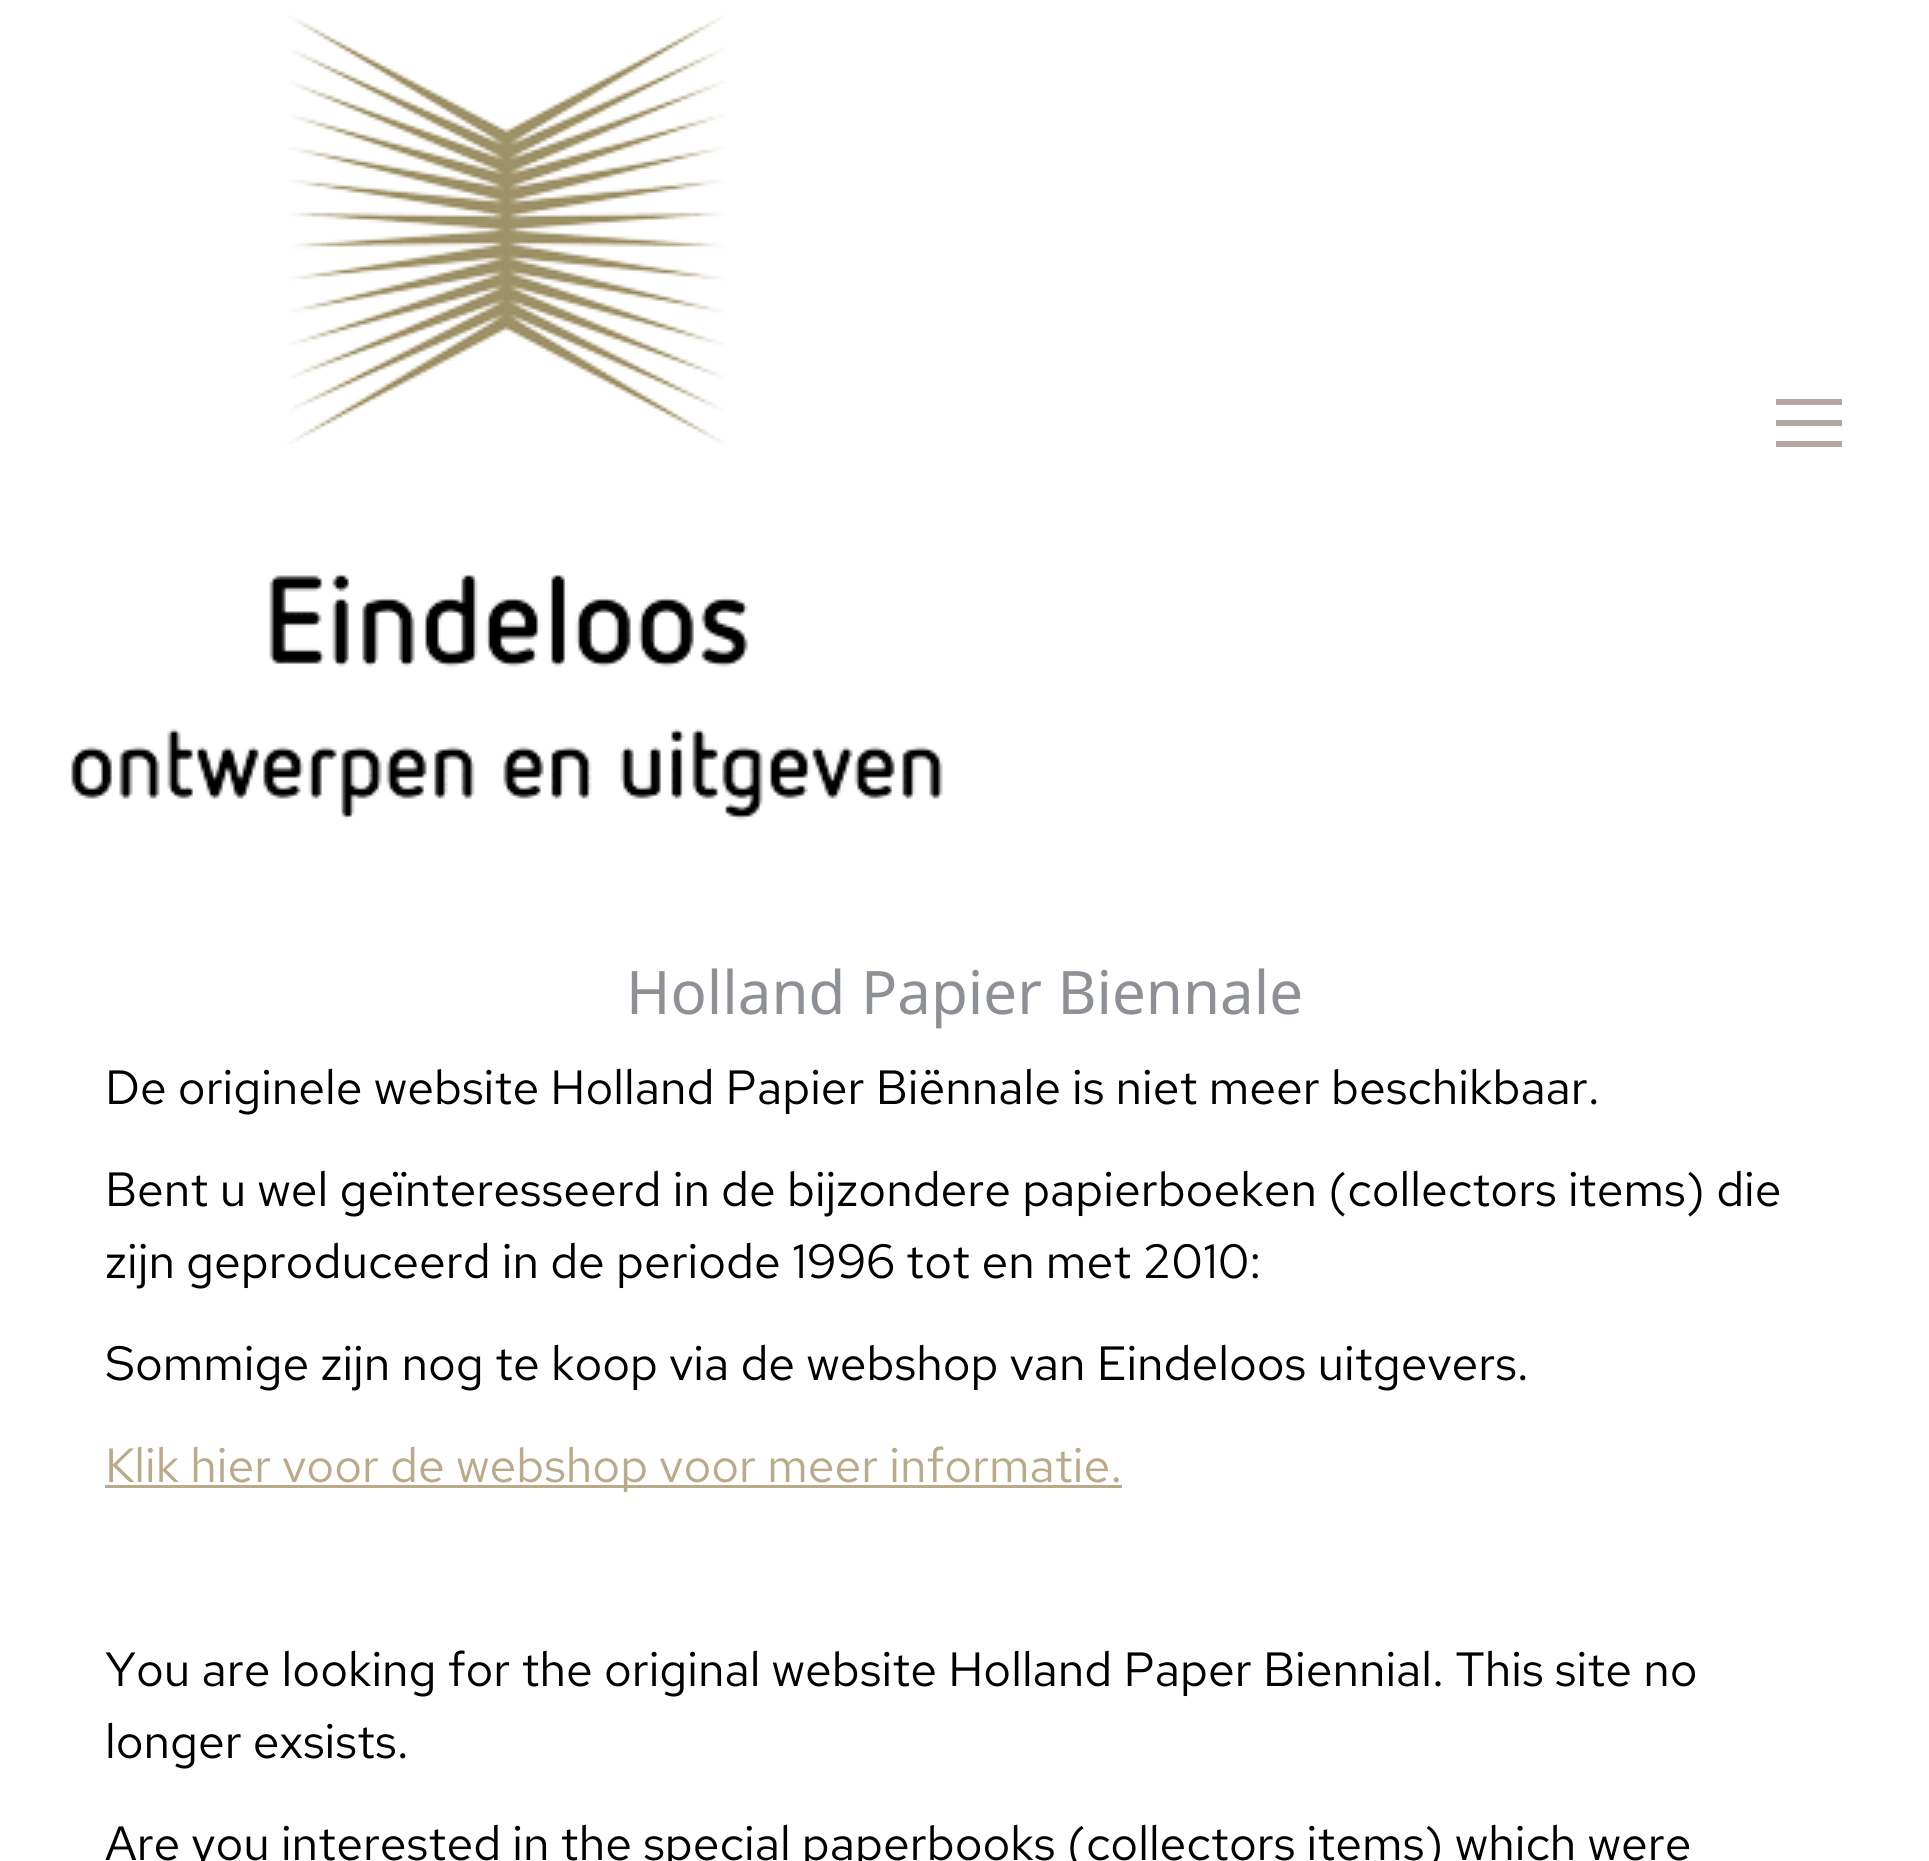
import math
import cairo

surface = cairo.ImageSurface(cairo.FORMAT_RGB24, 1929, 1861)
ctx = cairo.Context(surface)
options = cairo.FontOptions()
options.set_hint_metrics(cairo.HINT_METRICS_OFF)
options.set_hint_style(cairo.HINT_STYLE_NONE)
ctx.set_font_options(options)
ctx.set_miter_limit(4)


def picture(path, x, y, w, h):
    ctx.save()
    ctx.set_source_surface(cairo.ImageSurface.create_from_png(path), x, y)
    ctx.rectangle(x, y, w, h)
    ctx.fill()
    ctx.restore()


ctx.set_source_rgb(1, 1, 1)
ctx.paint()
picture("img1.png", 71, 15, 872, 805)
ctx.set_source_rgb(0.706, 0.647, 0.62)
ctx.rectangle(1776, 399, 66, 6)
ctx.fill()
ctx.rectangle(1776, 420, 66, 6)
ctx.fill()
ctx.rectangle(1776, 441, 66, 6)
ctx.fill()
ctx.select_font_face("Noto Sans")
ctx.set_font_size(60)
ctx.set_source_rgb(0.553, 0.565, 0.584)
ctx.move_to(626, 1014)
ctx.show_text("Holland Papier Biennale")
ctx.select_font_face("Red Hat Text")
ctx.set_font_size(48)
ctx.set_source_rgb(0, 0, 0)
ctx.move_to(105, 1104)
ctx.show_text("De originele website Holland Papier Biënnale is niet meer beschikbaar.")
ctx.move_to(105, 1206)
ctx.show_text("Bent u wel geïnteresseerd in de bijzondere papierboeken (collectors items) die")
ctx.move_to(105, 1278)
ctx.show_text("zijn geproduceerd in de periode 1996 tot en met 2010:")
ctx.move_to(105, 1380)
ctx.show_text("Sommige zijn nog te koop via de webshop van Eindeloos uitgevers.")
ctx.set_source_rgb(0.729, 0.667, 0.537)
ctx.rectangle(105, 1485, 1017, 3)
ctx.fill()
ctx.move_to(105, 1482)
ctx.show_text("Klik hier voor de webshop voor meer informatie.")
ctx.set_source_rgb(0, 0, 0)
ctx.move_to(105, 1686)
ctx.show_text("You are looking for the original website Holland Paper Biennial. This site no")
ctx.move_to(105, 1758)
ctx.show_text("longer exsists.")
ctx.move_to(105, 1860)
ctx.show_text("Are you interested in the special paperbooks (collectors items) which were")
surface.write_to_png("page.png")
